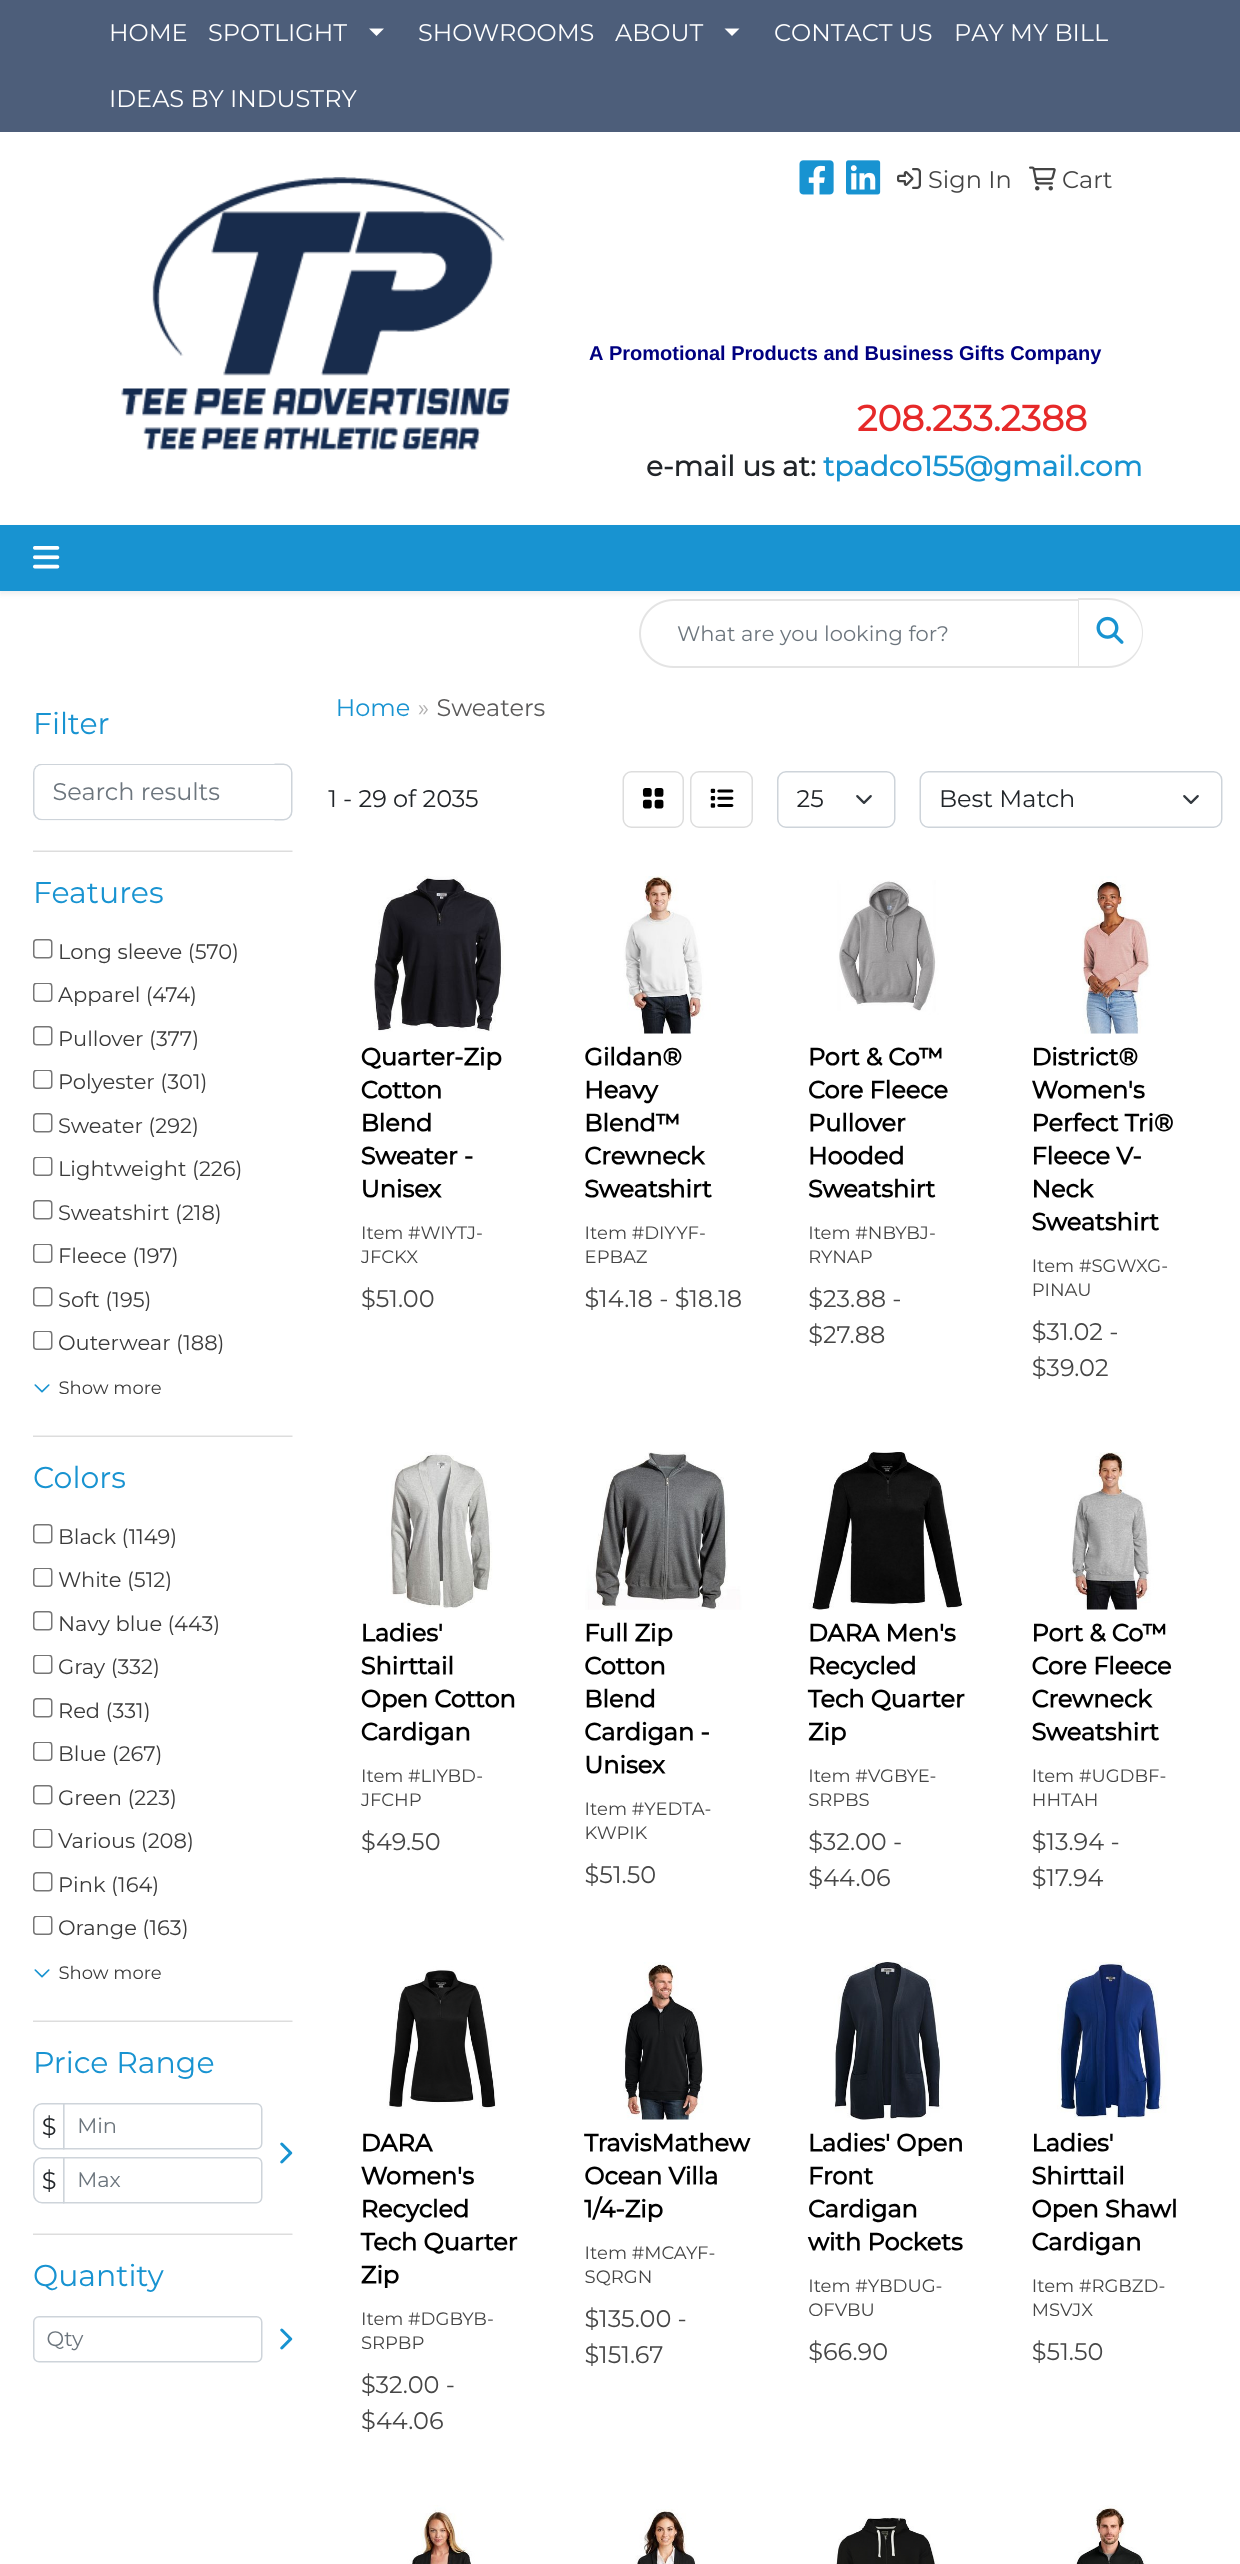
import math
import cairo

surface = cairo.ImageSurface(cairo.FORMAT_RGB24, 1240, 2564)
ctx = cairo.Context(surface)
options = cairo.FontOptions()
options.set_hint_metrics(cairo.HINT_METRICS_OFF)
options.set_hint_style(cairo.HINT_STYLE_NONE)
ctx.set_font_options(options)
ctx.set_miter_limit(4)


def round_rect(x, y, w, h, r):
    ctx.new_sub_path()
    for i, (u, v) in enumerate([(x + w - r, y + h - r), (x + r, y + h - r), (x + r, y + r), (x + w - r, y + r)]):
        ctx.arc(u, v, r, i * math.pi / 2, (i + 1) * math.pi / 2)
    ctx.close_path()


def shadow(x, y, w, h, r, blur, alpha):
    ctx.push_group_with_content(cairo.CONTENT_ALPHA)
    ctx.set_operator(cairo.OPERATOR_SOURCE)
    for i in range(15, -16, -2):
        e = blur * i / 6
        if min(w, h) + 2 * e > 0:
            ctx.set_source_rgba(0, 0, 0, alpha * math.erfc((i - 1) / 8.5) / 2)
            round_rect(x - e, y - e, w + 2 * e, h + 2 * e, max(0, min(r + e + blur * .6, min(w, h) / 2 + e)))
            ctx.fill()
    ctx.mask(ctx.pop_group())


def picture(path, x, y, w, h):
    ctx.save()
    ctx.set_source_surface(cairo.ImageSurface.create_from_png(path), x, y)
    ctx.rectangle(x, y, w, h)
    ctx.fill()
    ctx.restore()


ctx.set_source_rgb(1, 1, 1)
ctx.paint()
ctx.set_source_rgb(0.302, 0.369, 0.478)
ctx.rectangle(0, 0, 1240, 132)
ctx.fill()
ctx.select_font_face("Montserrat Thin")
ctx.set_font_size(24)
ctx.set_source_rgb(1, 1, 1)
ctx.move_to(109, 41)
ctx.show_text("HOME")
ctx.move_to(208, 41)
ctx.show_text("SPOTLIGHT")
ctx.new_path()
ctx.move_to(369, 28.5)
ctx.line_to(384, 28.5)
ctx.line_to(376.5, 36)
ctx.close_path()
ctx.fill()
ctx.move_to(418, 41)
ctx.show_text("SHOWROOMS")
ctx.move_to(615, 41)
ctx.show_text("ABOUT")
ctx.new_path()
ctx.move_to(724.5, 28.5)
ctx.line_to(739.5, 28.5)
ctx.line_to(732, 36)
ctx.close_path()
ctx.fill()
ctx.move_to(774, 41)
ctx.show_text("CONTACT US")
ctx.move_to(954, 41)
ctx.show_text("PAY MY BILL")
ctx.move_to(109, 107)
ctx.show_text("IDEAS BY INDUSTRY")
picture("img1.png", 121, 177, 389, 273)
picture("img2.png", 799, 160, 35, 35)
picture("img3.png", 846, 160, 35, 35)
picture("img4.png", 897, 168, 24, 21)
ctx.set_source_rgb(0.267, 0.267, 0.267)
ctx.move_to(928, 188)
ctx.show_text("Sign In")
picture("img5.png", 1029, 166, 27, 25)
ctx.move_to(1062, 188)
ctx.show_text("Cart")
ctx.select_font_face("Liberation Sans", cairo.FONT_SLANT_NORMAL, cairo.FONT_WEIGHT_BOLD)
ctx.set_font_size(20)
ctx.set_source_rgb(0, 0, 0.502)
ctx.move_to(589, 360)
ctx.show_text("A Promotional Products and Business Gifts Company")
ctx.select_font_face("Montserrat", cairo.FONT_SLANT_NORMAL, cairo.FONT_WEIGHT_BOLD)
ctx.set_font_size(36)
ctx.set_source_rgb(0.902, 0.161, 0.161)
ctx.move_to(857, 431)
ctx.show_text("208.233.2388")
ctx.set_font_size(28)
ctx.set_source_rgb(0.129, 0.145, 0.161)
ctx.move_to(646, 476)
ctx.show_text("e-mail us at:")
ctx.set_source_rgb(0.094, 0.576, 0.82)
ctx.move_to(823, 476)
ctx.show_text("tpadco155@gmail.com")
ctx.set_source_rgb(0, 0, 0)
shadow(0, 528, 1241, 66, 0, 3, 0.07)
ctx.set_source_rgb(0.094, 0.576, 0.82)
ctx.rectangle(0, 525, 1240, 66)
ctx.fill()
picture("img6.png", 33, 546, 27, 23)
ctx.new_path()
ctx.move_to(673.5, 600)
ctx.line_to(1079, 600)
ctx.line_to(1079, 667)
ctx.line_to(673.5, 667)
ctx.curve_to(655, 667, 640, 652, 640, 633.5)
ctx.curve_to(640, 615, 655, 600, 673.5, 600)
ctx.close_path()
ctx.set_source_rgb(0.894, 0.894, 0.894)
ctx.stroke()
ctx.select_font_face("Montserrat Thin")
ctx.set_font_size(21)
ctx.set_source_rgb(0.424, 0.459, 0.49)
ctx.move_to(677, 641)
ctx.show_text("What are you looking for?")
ctx.set_source_rgb(1, 1, 1)
ctx.new_path()
ctx.move_to(1079, 600)
ctx.line_to(1109, 600)
ctx.curve_to(1127, 600, 1142, 615, 1142, 633)
ctx.curve_to(1142, 651, 1127, 666, 1109, 666)
ctx.line_to(1079, 666)
ctx.close_path()
ctx.fill()
ctx.set_source_rgb(0.894, 0.894, 0.894)
ctx.set_fill_rule(cairo.FILL_RULE_EVEN_ODD)
ctx.new_path()
ctx.move_to(1078, 598)
ctx.line_to(1108, 598)
ctx.curve_to(1128, 598, 1143, 614, 1143, 633)
ctx.curve_to(1143, 652, 1128, 668, 1108, 668)
ctx.line_to(1078, 668)
ctx.close_path()
ctx.move_to(1078, 600)
ctx.line_to(1108, 600)
ctx.curve_to(1127, 600, 1142, 615, 1142, 633)
ctx.curve_to(1142, 651, 1127, 666, 1108, 666)
ctx.line_to(1078, 666)
ctx.close_path()
ctx.fill()
picture("img7.png", 1096, 616, 28, 28)
picture("img8.png", 33, 699, 1190, 1865)
surface.write_to_png("page.png")
